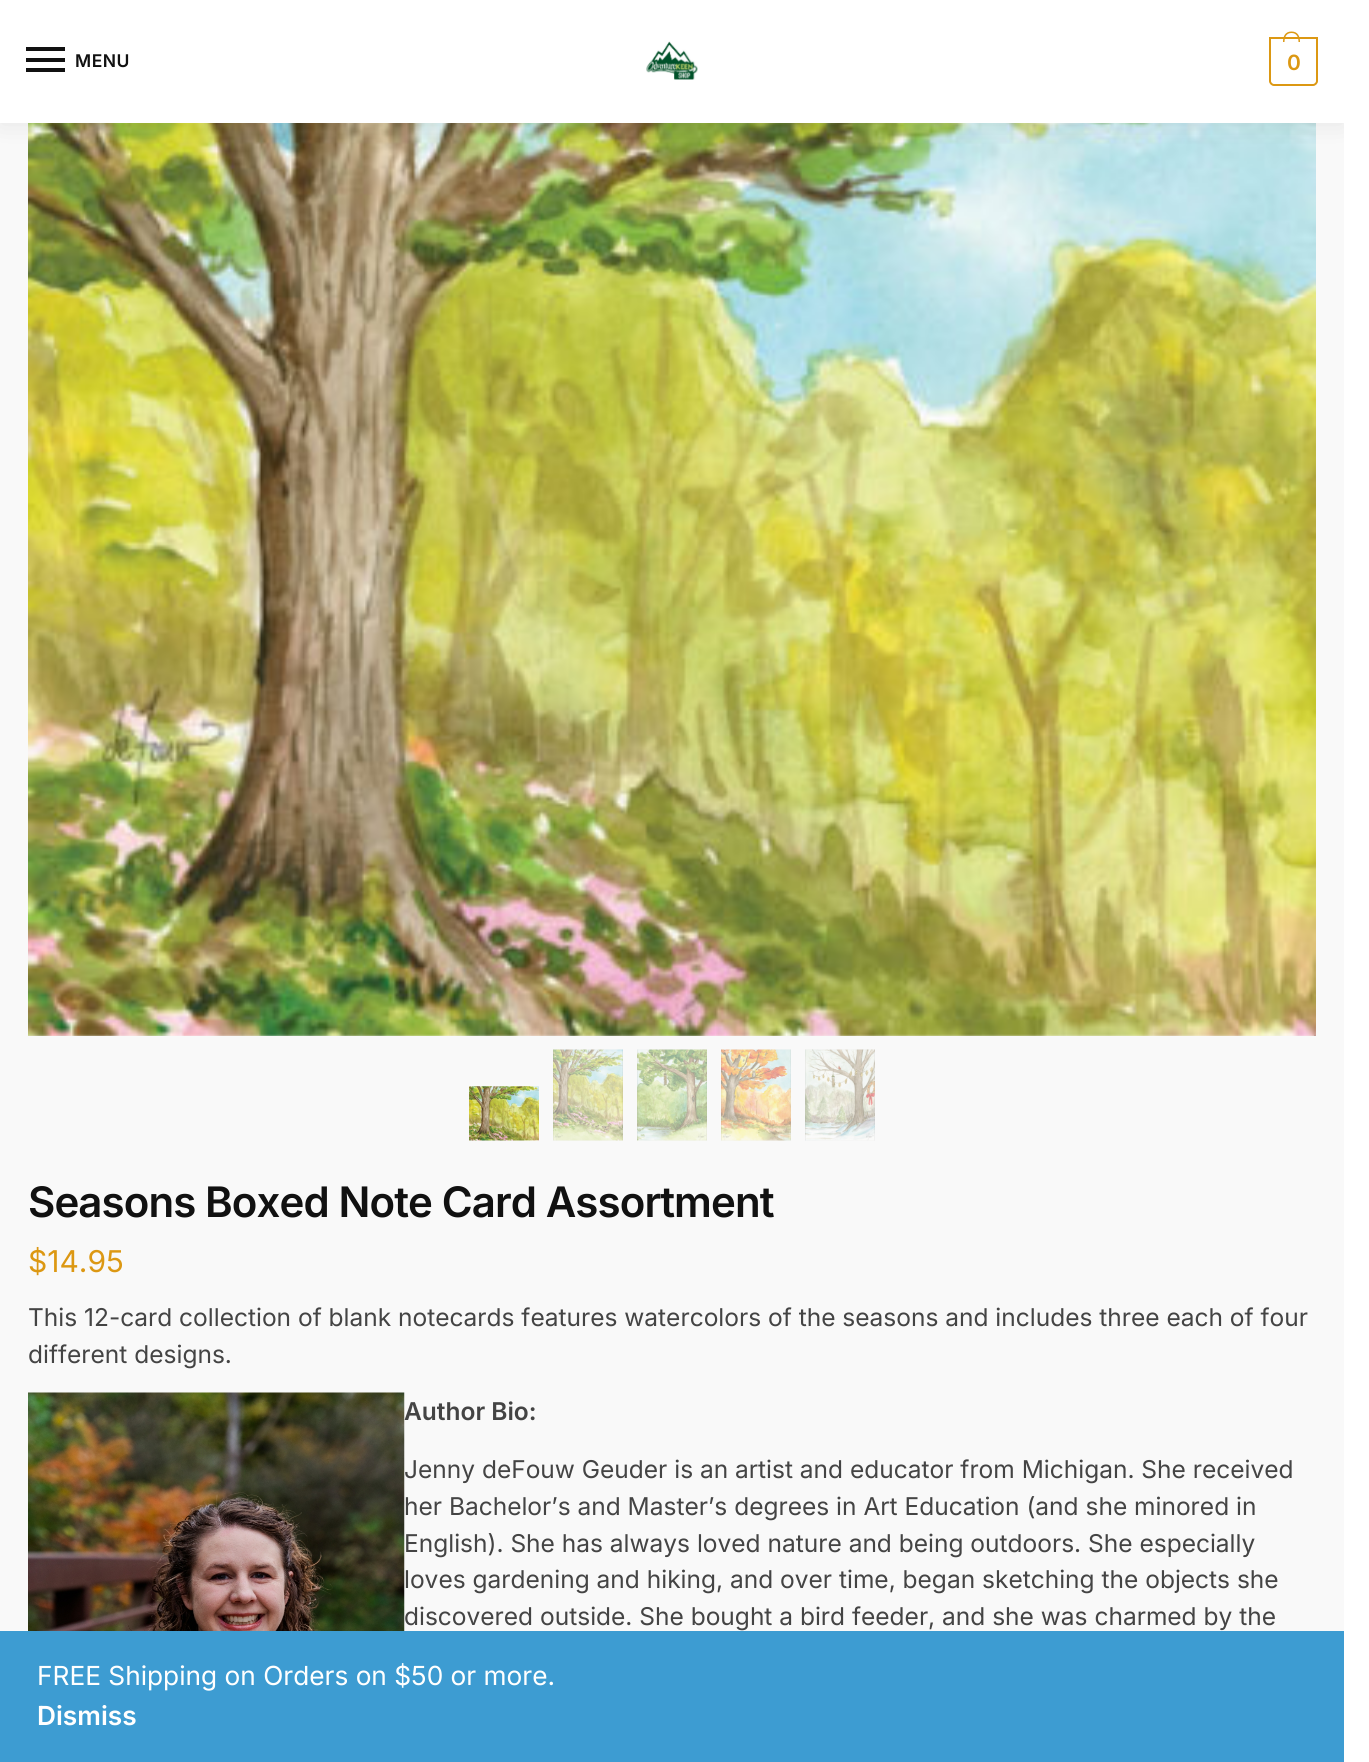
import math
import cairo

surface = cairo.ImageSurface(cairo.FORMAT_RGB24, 1369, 1762)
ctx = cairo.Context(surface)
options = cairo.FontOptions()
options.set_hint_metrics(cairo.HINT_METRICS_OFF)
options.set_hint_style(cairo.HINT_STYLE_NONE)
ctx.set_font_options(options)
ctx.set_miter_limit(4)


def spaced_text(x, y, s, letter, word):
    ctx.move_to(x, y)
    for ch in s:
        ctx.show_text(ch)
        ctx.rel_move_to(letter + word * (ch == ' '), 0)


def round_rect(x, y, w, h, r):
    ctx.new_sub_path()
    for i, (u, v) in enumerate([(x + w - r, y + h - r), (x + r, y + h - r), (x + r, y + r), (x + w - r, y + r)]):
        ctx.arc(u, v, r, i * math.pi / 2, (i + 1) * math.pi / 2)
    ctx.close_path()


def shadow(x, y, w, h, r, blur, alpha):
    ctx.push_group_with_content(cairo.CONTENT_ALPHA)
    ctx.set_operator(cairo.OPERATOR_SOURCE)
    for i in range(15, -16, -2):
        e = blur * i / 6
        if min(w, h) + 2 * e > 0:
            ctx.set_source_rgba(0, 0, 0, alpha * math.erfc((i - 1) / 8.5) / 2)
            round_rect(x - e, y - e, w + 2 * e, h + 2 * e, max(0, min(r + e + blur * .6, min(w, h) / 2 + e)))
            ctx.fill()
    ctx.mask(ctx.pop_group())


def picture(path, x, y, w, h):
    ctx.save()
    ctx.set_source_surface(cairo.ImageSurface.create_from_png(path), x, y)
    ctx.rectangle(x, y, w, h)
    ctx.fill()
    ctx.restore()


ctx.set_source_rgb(0.973, 0.973, 0.973)
ctx.paint()
picture("img3.png", 1314, 1034, 2, 2)
picture("img2.png", 28, 123, 1288, 913)
ctx.set_source_rgb(0, 0, 0)
shadow(0, 2, 1344, 122, 0, 13, 0.08)
ctx.set_source_rgb(1, 1, 1)
ctx.rectangle(0, 0, 1344, 123)
ctx.fill()
ctx.set_source_rgb(0.067, 0.067, 0.067)
ctx.rectangle(26, 47, 39, 4)
ctx.fill()
ctx.rectangle(26, 58, 39, 4)
ctx.fill()
ctx.select_font_face("Inter SemiBold")
ctx.set_font_size(17.5)
spaced_text(75, 67, "MENU", 0.5, 0)
ctx.rectangle(26, 68, 39, 4)
ctx.fill()
picture("img1.png", 646, 41, 52, 39)
ctx.new_path()
ctx.move_to(1270, 38)
ctx.line_to(1317, 38)
ctx.line_to(1317, 81)
ctx.curve_to(1317, 83, 1315, 85, 1313, 85)
ctx.line_to(1274, 85)
ctx.curve_to(1272, 85, 1270, 83, 1270, 81)
ctx.close_path()
ctx.set_source_rgb(0.863, 0.596, 0.078)
ctx.stroke()
ctx.set_fill_rule(cairo.FILL_RULE_EVEN_ODD)
ctx.new_path()
ctx.move_to(1291.5, 31.5)
ctx.curve_to(1298, 31.5, 1300, 36.5, 1300, 42)
ctx.line_to(1283, 42)
ctx.curve_to(1283, 36.5, 1285, 31.5, 1291.5, 31.5)
ctx.close_path()
ctx.move_to(1291.5, 33)
ctx.curve_to(1297, 33, 1298.5, 37.5, 1298.5, 42)
ctx.line_to(1284.5, 42)
ctx.curve_to(1284.5, 37.5, 1286, 33, 1291.5, 33)
ctx.close_path()
ctx.fill()
ctx.set_font_size(21)
spaced_text(1287, 70, "0", -1, 0)
ctx.set_source_rgb(1, 1, 1)
ctx.rectangle(1344, 0, 25, 1762)
ctx.fill()
picture("img4.png", 469, 1086, 70, 55)
picture("img5.png", 553, 1049, 70, 92)
picture("img6.png", 637, 1049, 70, 92)
picture("img7.png", 721, 1049, 70, 92)
picture("img8.png", 805, 1049, 70, 92)
ctx.set_font_size(42)
ctx.set_source_rgb(0.067, 0.067, 0.067)
spaced_text(28, 1217, "Seasons Boxed Note Card Assortment", -0.9, 0)
ctx.select_font_face("Inter")
ctx.set_font_size(30)
ctx.set_source_rgb(0.863, 0.596, 0.078)
ctx.move_to(28, 1272)
ctx.show_text("$14.95")
ctx.set_font_size(24.5)
ctx.set_source_rgb(0.267, 0.267, 0.267)
ctx.move_to(28, 1326)
ctx.show_text("This 12-card collection of blank notecards features watercolors of the seasons and includes three each of four")
ctx.move_to(28, 1363)
ctx.show_text("different designs.")
picture("img9.png", 28, 1392, 377, 239)
ctx.select_font_face("Inter SemiBold")
ctx.move_to(404, 1420)
ctx.show_text("Author Bio:")
ctx.select_font_face("Inter")
ctx.move_to(404, 1478)
ctx.show_text("Jenny deFouw Geuder is an artist and educator from Michigan. She received")
ctx.move_to(404, 1515)
ctx.show_text("her Bachelor’s and Master’s degrees in Art Education (and she minored in")
ctx.move_to(404, 1552)
ctx.show_text("English). She has always loved nature and being outdoors. She especially")
ctx.move_to(404, 1588)
ctx.show_text("loves gardening and hiking, and over time, began sketching the objects she")
ctx.move_to(404, 1625)
ctx.show_text("discovered outside. She bought a bird feeder, and she was charmed by the")
ctx.set_source_rgb(0.239, 0.612, 0.824)
ctx.rectangle(0, 1631, 1344, 131)
ctx.fill()
ctx.set_font_size(26.25)
ctx.set_source_rgb(1, 1, 1)
ctx.move_to(37, 1685)
ctx.show_text("FREE Shipping on Orders on $50 or more.")
ctx.select_font_face("Inter SemiBold")
ctx.move_to(37, 1725)
ctx.show_text("Dismiss")
surface.write_to_png("page.png")
